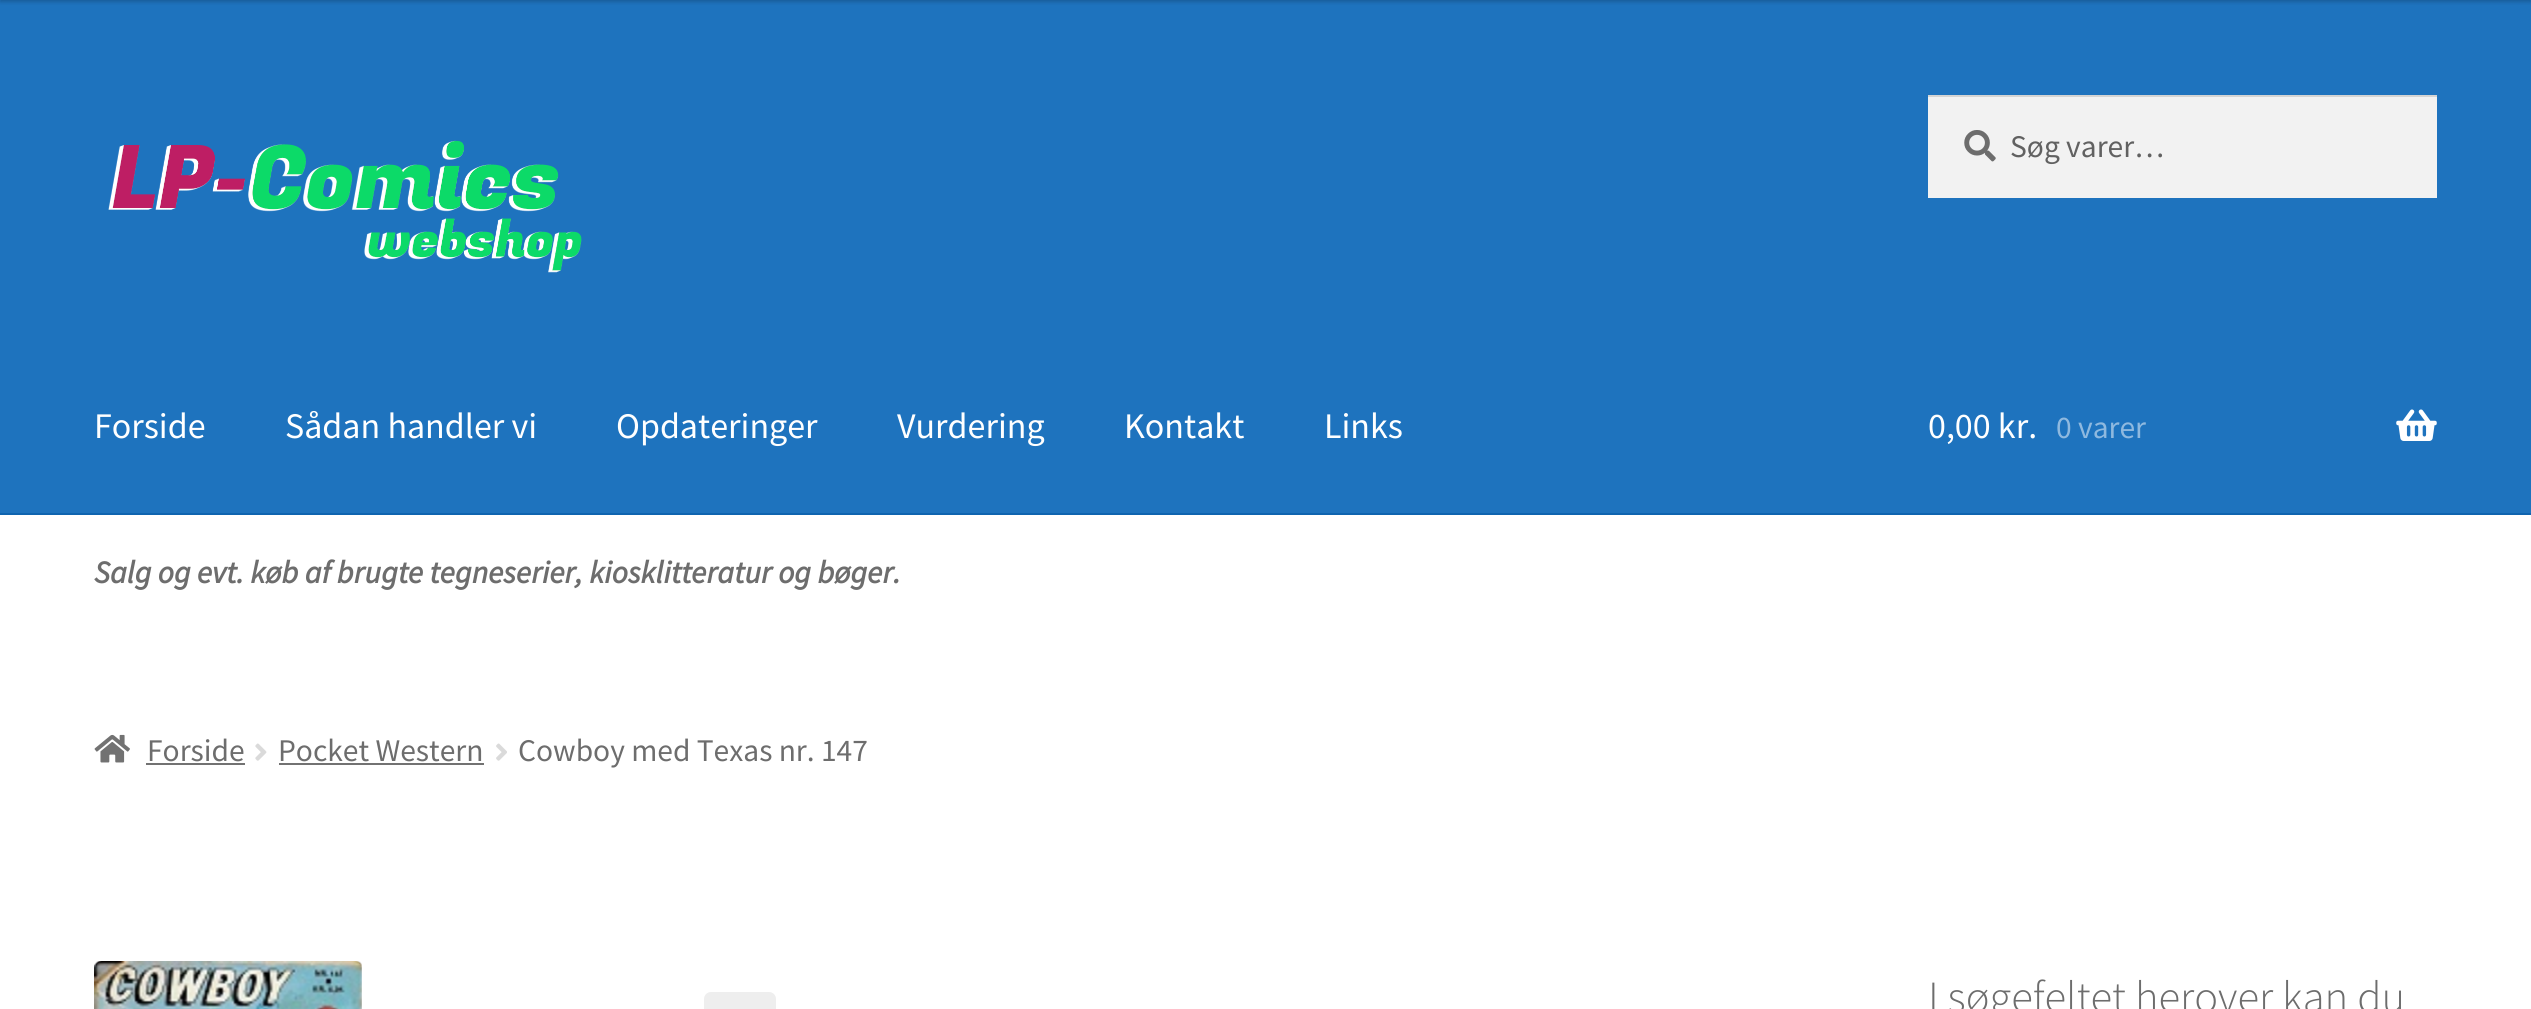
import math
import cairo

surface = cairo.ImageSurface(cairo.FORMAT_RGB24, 2531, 1009)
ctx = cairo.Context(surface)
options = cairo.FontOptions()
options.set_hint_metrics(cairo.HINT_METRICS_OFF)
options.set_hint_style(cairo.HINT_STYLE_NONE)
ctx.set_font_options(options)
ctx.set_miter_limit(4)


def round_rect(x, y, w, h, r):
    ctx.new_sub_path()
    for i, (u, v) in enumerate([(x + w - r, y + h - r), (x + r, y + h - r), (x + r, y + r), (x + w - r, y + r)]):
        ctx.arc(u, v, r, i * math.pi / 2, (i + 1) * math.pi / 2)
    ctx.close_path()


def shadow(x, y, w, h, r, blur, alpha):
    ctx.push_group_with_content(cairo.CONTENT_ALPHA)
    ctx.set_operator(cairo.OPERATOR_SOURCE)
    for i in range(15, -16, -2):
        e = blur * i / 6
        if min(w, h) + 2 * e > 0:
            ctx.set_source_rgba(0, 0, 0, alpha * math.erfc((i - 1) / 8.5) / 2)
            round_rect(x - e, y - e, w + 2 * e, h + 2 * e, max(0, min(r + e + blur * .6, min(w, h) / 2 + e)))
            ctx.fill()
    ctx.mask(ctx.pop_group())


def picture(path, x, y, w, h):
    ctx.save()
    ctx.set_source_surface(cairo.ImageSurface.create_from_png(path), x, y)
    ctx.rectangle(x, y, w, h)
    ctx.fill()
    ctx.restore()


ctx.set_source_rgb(1, 1, 1)
ctx.paint()
ctx.set_source_rgb(0.118, 0.451, 0.745)
ctx.rectangle(0, 0, 2531, 513)
ctx.fill()
ctx.set_source_rgb(0, 0, 0)
shadow(0, -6, 2531, 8, 0, 2, 0.2)
ctx.set_source_rgb(0.059, 0.392, 0.686)
ctx.rectangle(0, 513, 2531, 2)
ctx.fill()
picture("img1.png", 108, 140, 474, 133)
ctx.set_source_rgb(0.949, 0.949, 0.949)
ctx.rectangle(1928, 97, 509, 101)
ctx.fill()
picture("img2.png", 1964, 130, 32, 32)
ctx.set_source_rgb(0.831, 0.831, 0.831)
ctx.rectangle(1928, 95, 509, 2)
ctx.fill()
ctx.select_font_face("Source Sans Pro")
ctx.set_font_size(31.5)
ctx.set_source_rgb(0.38, 0.38, 0.38)
ctx.move_to(2010, 157)
ctx.show_text("Søg varer…")
ctx.set_font_size(36)
ctx.set_source_rgb(1, 1, 1)
ctx.move_to(94, 438)
ctx.show_text("Forside")
ctx.move_to(285, 438)
ctx.show_text("Sådan handler vi")
ctx.move_to(616, 438)
ctx.show_text("Opdateringer")
ctx.move_to(897, 438)
ctx.show_text("Vurdering")
ctx.move_to(1124, 438)
ctx.show_text("Kontakt")
ctx.move_to(1324, 438)
ctx.show_text("Links")
ctx.move_to(1928, 438)
ctx.show_text("0,00 kr.")
ctx.set_font_size(31.5)
ctx.set_source_rgb(0.561, 0.725, 0.875)
ctx.move_to(2056, 438)
ctx.show_text("0 varer")
picture("img3.png", 2396, 409, 41, 32)
ctx.select_font_face("Source Sans Pro", cairo.FONT_SLANT_ITALIC, cairo.FONT_WEIGHT_BOLD)
ctx.set_source_rgb(0.427, 0.427, 0.427)
ctx.move_to(94, 583)
ctx.show_text("Salg og evt. køb af brugte tegneserier, kiosklitteratur og bøger.")
picture("img4.png", 94, 734, 36, 29)
ctx.select_font_face("Source Sans Pro")
ctx.move_to(147, 761)
ctx.show_text("Forside")
ctx.set_source_rgb(0.447, 0.447, 0.447)
ctx.rectangle(146, 763, 99, 2)
ctx.fill()
picture("img5.png", 255, 743, 12, 18)
ctx.set_source_rgb(0.427, 0.427, 0.427)
ctx.move_to(278, 761)
ctx.show_text("Pocket Western")
ctx.set_source_rgb(0.447, 0.447, 0.447)
ctx.rectangle(279, 763, 205, 2)
ctx.fill()
picture("img6.png", 496, 743, 11, 18)
ctx.set_source_rgb(0.427, 0.427, 0.427)
ctx.move_to(518, 761)
ctx.show_text("Cowboy med Texas nr. 147")
picture("img7.png", 94, 961, 268, 48)
ctx.set_source_rgb(0.933, 0.933, 0.933)
round_rect(704, 992, 72, 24, 7)
ctx.fill()
ctx.select_font_face("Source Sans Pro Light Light")
ctx.set_font_size(44.6)
ctx.set_source_rgb(0.427, 0.427, 0.427)
ctx.move_to(1928, 1012)
ctx.show_text("I søgefeltet herover kan du")
surface.write_to_png("page.png")
